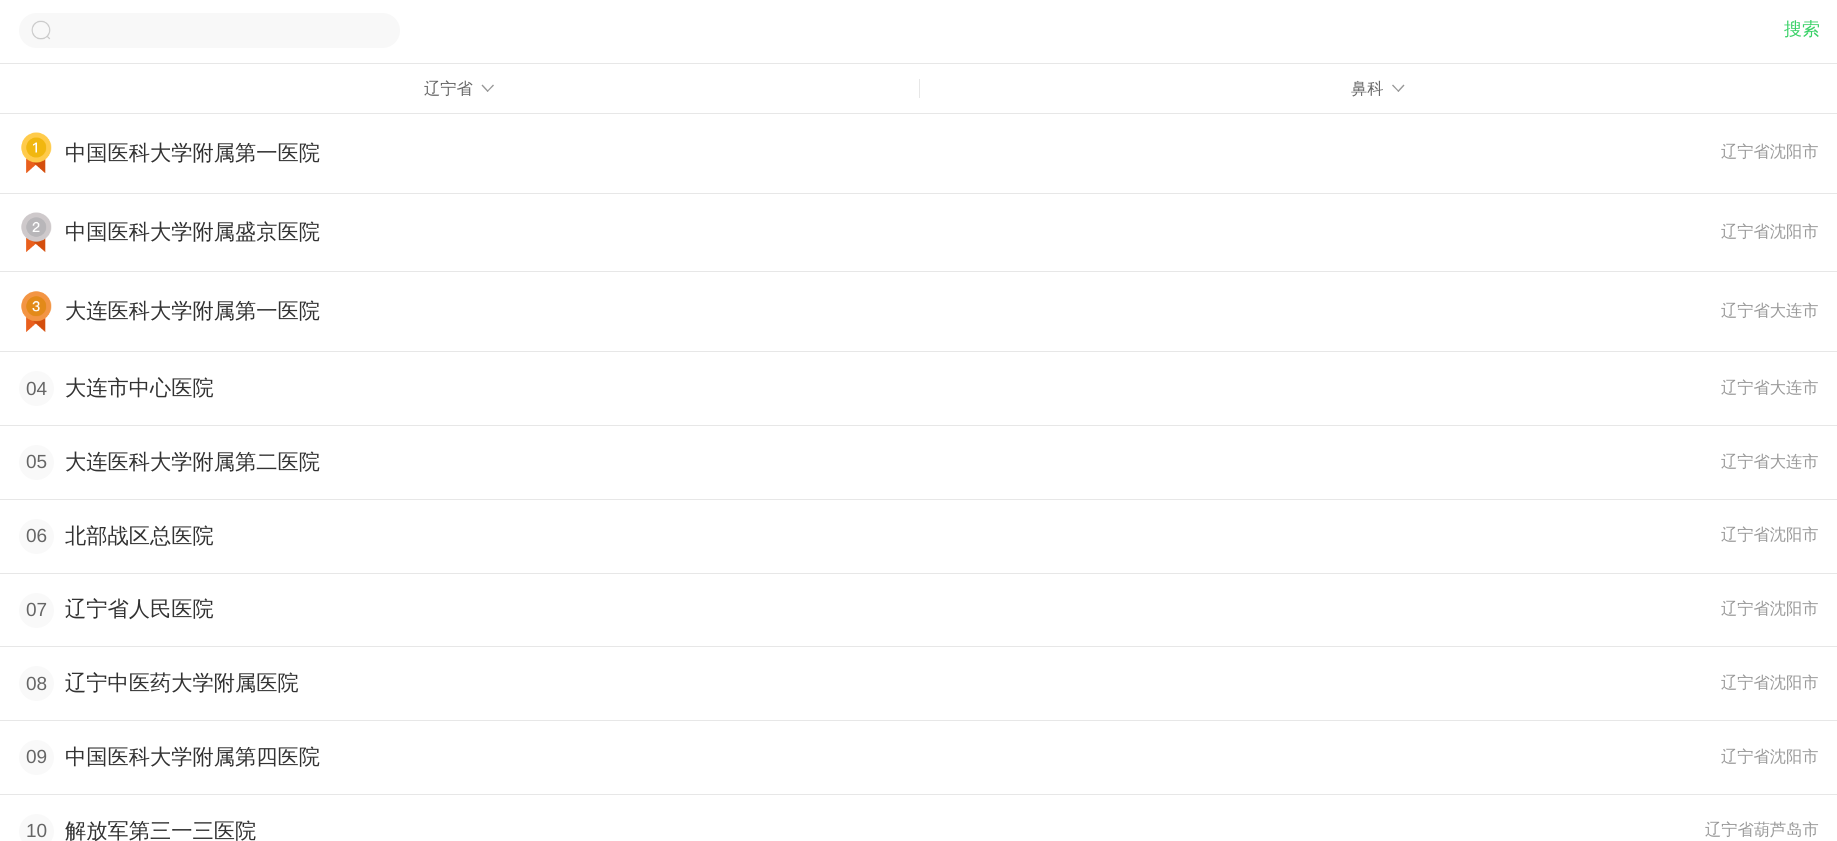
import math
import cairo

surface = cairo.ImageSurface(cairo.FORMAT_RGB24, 1837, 841)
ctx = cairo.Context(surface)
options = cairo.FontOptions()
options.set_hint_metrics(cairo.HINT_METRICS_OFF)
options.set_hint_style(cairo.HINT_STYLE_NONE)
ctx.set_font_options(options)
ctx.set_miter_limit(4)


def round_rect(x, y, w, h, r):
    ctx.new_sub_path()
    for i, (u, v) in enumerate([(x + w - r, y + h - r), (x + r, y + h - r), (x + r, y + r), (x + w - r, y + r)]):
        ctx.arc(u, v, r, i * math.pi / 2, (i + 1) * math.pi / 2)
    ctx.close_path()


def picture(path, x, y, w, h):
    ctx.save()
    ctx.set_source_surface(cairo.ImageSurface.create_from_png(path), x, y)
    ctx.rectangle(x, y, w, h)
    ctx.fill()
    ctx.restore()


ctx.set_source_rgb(1, 1, 1)
ctx.paint()
ctx.set_source_rgb(0.906, 0.906, 0.906)
ctx.rectangle(0, 63, 1837, 1)
ctx.fill()
ctx.set_source_rgb(0.969, 0.969, 0.969)
round_rect(19, 13, 381, 35, 17.5)
ctx.fill()
picture("img1.png", 31, 20, 20, 20)
ctx.select_font_face("WenQuanYi Zen Hei Medium")
ctx.set_font_size(18)
ctx.set_source_rgb(0.224, 0.82, 0.404)
ctx.move_to(1784, 35)
ctx.show_text("搜索")
ctx.set_source_rgb(0.906, 0.906, 0.906)
ctx.rectangle(0, 113, 1837, 1)
ctx.fill()
ctx.set_font_size(16.25)
ctx.set_source_rgb(0.4, 0.4, 0.4)
ctx.move_to(424, 94)
ctx.show_text("辽宁省")
ctx.set_source_rgb(0.592, 0.592, 0.592)
ctx.new_path()
ctx.move_to(487, 91)
ctx.line_to(493, 84.5)
ctx.line_to(494, 85.5)
ctx.line_to(487.5, 92)
ctx.close_path()
ctx.fill()
ctx.new_path()
ctx.move_to(481.5, 85.5)
ctx.line_to(482.5, 84.5)
ctx.line_to(488.5, 91)
ctx.line_to(487.5, 92)
ctx.close_path()
ctx.fill()
ctx.set_source_rgb(0.906, 0.906, 0.906)
ctx.rectangle(919, 79, 1, 19)
ctx.fill()
ctx.set_source_rgb(0.4, 0.4, 0.4)
ctx.move_to(1351, 94)
ctx.show_text("鼻科")
ctx.set_source_rgb(0.592, 0.592, 0.592)
ctx.new_path()
ctx.move_to(1397.5, 91)
ctx.line_to(1403.5, 84.5)
ctx.line_to(1404.5, 85.5)
ctx.line_to(1398.5, 92)
ctx.close_path()
ctx.fill()
ctx.new_path()
ctx.move_to(1392, 85.5)
ctx.line_to(1393, 84.5)
ctx.line_to(1399, 91)
ctx.line_to(1398.5, 92)
ctx.close_path()
ctx.fill()
ctx.set_source_rgb(0.906, 0.906, 0.906)
ctx.rectangle(0, 193, 1837, 1)
ctx.fill()
picture("img2.png", 21, 132, 31, 41)
ctx.set_font_size(21.25)
ctx.set_source_rgb(0.196, 0.196, 0.196)
ctx.move_to(65, 160)
ctx.show_text("中国医科大学附属第一医院")
ctx.set_font_size(16.25)
ctx.set_source_rgb(0.6, 0.6, 0.6)
ctx.move_to(1721, 157)
ctx.show_text("辽宁省沈阳市")
ctx.set_source_rgb(0.906, 0.906, 0.906)
ctx.rectangle(0, 271, 1837, 1)
ctx.fill()
picture("img3.png", 21, 212, 31, 40)
ctx.set_font_size(21.25)
ctx.set_source_rgb(0.196, 0.196, 0.196)
ctx.move_to(65, 239)
ctx.show_text("中国医科大学附属盛京医院")
ctx.set_font_size(16.25)
ctx.set_source_rgb(0.6, 0.6, 0.6)
ctx.move_to(1721, 237)
ctx.show_text("辽宁省沈阳市")
ctx.set_source_rgb(0.906, 0.906, 0.906)
ctx.rectangle(0, 351, 1837, 1)
ctx.fill()
picture("img4.png", 21, 291, 31, 41)
ctx.set_font_size(21.25)
ctx.set_source_rgb(0.196, 0.196, 0.196)
ctx.move_to(65, 318)
ctx.show_text("大连医科大学附属第一医院")
ctx.set_font_size(16.25)
ctx.set_source_rgb(0.6, 0.6, 0.6)
ctx.move_to(1721, 316)
ctx.show_text("辽宁省大连市")
ctx.set_source_rgb(0.906, 0.906, 0.906)
ctx.rectangle(0, 425, 1837, 1)
ctx.fill()
ctx.set_source_rgb(0.973, 0.973, 0.973)
ctx.arc(36.5, 388.5, 17.5, 0, 2 * math.pi)
ctx.fill()
ctx.select_font_face("Liberation Sans")
ctx.set_font_size(19)
ctx.set_source_rgb(0.4, 0.4, 0.4)
ctx.move_to(26, 395)
ctx.show_text("04")
ctx.select_font_face("WenQuanYi Zen Hei Medium")
ctx.set_font_size(21.25)
ctx.set_source_rgb(0.196, 0.196, 0.196)
ctx.move_to(65, 395)
ctx.show_text("大连市中心医院")
ctx.set_font_size(16.25)
ctx.set_source_rgb(0.6, 0.6, 0.6)
ctx.move_to(1721, 393)
ctx.show_text("辽宁省大连市")
ctx.set_source_rgb(0.906, 0.906, 0.906)
ctx.rectangle(0, 499, 1837, 1)
ctx.fill()
ctx.set_source_rgb(0.973, 0.973, 0.973)
ctx.arc(36.5, 462.5, 17.5, 0, 2 * math.pi)
ctx.fill()
ctx.select_font_face("Liberation Sans")
ctx.set_font_size(19)
ctx.set_source_rgb(0.4, 0.4, 0.4)
ctx.move_to(26, 468)
ctx.show_text("05")
ctx.select_font_face("WenQuanYi Zen Hei Medium")
ctx.set_font_size(21.25)
ctx.set_source_rgb(0.196, 0.196, 0.196)
ctx.move_to(65, 469)
ctx.show_text("大连医科大学附属第二医院")
ctx.set_font_size(16.25)
ctx.set_source_rgb(0.6, 0.6, 0.6)
ctx.move_to(1721, 467)
ctx.show_text("辽宁省大连市")
ctx.set_source_rgb(0.906, 0.906, 0.906)
ctx.rectangle(0, 573, 1837, 1)
ctx.fill()
ctx.set_source_rgb(0.973, 0.973, 0.973)
ctx.arc(36.5, 536.5, 17.5, 0, 2 * math.pi)
ctx.fill()
ctx.select_font_face("Liberation Sans")
ctx.set_font_size(19)
ctx.set_source_rgb(0.4, 0.4, 0.4)
ctx.move_to(26, 542)
ctx.show_text("06")
ctx.select_font_face("WenQuanYi Zen Hei Medium")
ctx.set_font_size(21.25)
ctx.set_source_rgb(0.196, 0.196, 0.196)
ctx.move_to(65, 543)
ctx.show_text("北部战区总医院")
ctx.set_font_size(16.25)
ctx.set_source_rgb(0.6, 0.6, 0.6)
ctx.move_to(1721, 540)
ctx.show_text("辽宁省沈阳市")
ctx.set_source_rgb(0.906, 0.906, 0.906)
ctx.rectangle(0, 646, 1837, 1)
ctx.fill()
ctx.set_source_rgb(0.973, 0.973, 0.973)
ctx.arc(36.5, 610.5, 17.5, 0, 2 * math.pi)
ctx.fill()
ctx.select_font_face("Liberation Sans")
ctx.set_font_size(19)
ctx.set_source_rgb(0.4, 0.4, 0.4)
ctx.move_to(26, 616)
ctx.show_text("07")
ctx.select_font_face("WenQuanYi Zen Hei Medium")
ctx.set_font_size(21.25)
ctx.set_source_rgb(0.196, 0.196, 0.196)
ctx.move_to(65, 616)
ctx.show_text("辽宁省人民医院")
ctx.set_font_size(16.25)
ctx.set_source_rgb(0.6, 0.6, 0.6)
ctx.move_to(1721, 614)
ctx.show_text("辽宁省沈阳市")
ctx.set_source_rgb(0.906, 0.906, 0.906)
ctx.rectangle(0, 720, 1837, 1)
ctx.fill()
ctx.set_source_rgb(0.973, 0.973, 0.973)
ctx.arc(36.5, 683.5, 17.5, 0, 2 * math.pi)
ctx.fill()
ctx.select_font_face("Liberation Sans")
ctx.set_font_size(19)
ctx.set_source_rgb(0.4, 0.4, 0.4)
ctx.move_to(26, 690)
ctx.show_text("08")
ctx.select_font_face("WenQuanYi Zen Hei Medium")
ctx.set_font_size(21.25)
ctx.set_source_rgb(0.196, 0.196, 0.196)
ctx.move_to(65, 690)
ctx.show_text("辽宁中医药大学附属医院")
ctx.set_font_size(16.25)
ctx.set_source_rgb(0.6, 0.6, 0.6)
ctx.move_to(1721, 688)
ctx.show_text("辽宁省沈阳市")
ctx.set_source_rgb(0.906, 0.906, 0.906)
ctx.rectangle(0, 794, 1837, 1)
ctx.fill()
ctx.set_source_rgb(0.973, 0.973, 0.973)
ctx.arc(36.5, 757.5, 17.5, 0, 2 * math.pi)
ctx.fill()
ctx.select_font_face("Liberation Sans")
ctx.set_font_size(19)
ctx.set_source_rgb(0.4, 0.4, 0.4)
ctx.move_to(26, 763)
ctx.show_text("09")
ctx.select_font_face("WenQuanYi Zen Hei Medium")
ctx.set_font_size(21.25)
ctx.set_source_rgb(0.196, 0.196, 0.196)
ctx.move_to(65, 764)
ctx.show_text("中国医科大学附属第四医院")
ctx.set_font_size(16.25)
ctx.set_source_rgb(0.6, 0.6, 0.6)
ctx.move_to(1721, 762)
ctx.show_text("辽宁省沈阳市")
ctx.set_source_rgb(0.973, 0.973, 0.973)
ctx.new_path()
ctx.arc(36.5, 831.5, 17.5, 0, 2 * math.pi)
ctx.fill()
ctx.select_font_face("Liberation Sans")
ctx.set_font_size(19)
ctx.set_source_rgb(0.4, 0.4, 0.4)
ctx.move_to(26, 837)
ctx.show_text("10")
ctx.select_font_face("WenQuanYi Zen Hei Medium")
ctx.set_font_size(21.25)
ctx.set_source_rgb(0.196, 0.196, 0.196)
ctx.move_to(65, 838)
ctx.show_text("解放军第三一三医院")
ctx.set_font_size(16.25)
ctx.set_source_rgb(0.6, 0.6, 0.6)
ctx.move_to(1705, 835)
ctx.show_text("辽宁省葫芦岛市")
surface.write_to_png("page.png")
